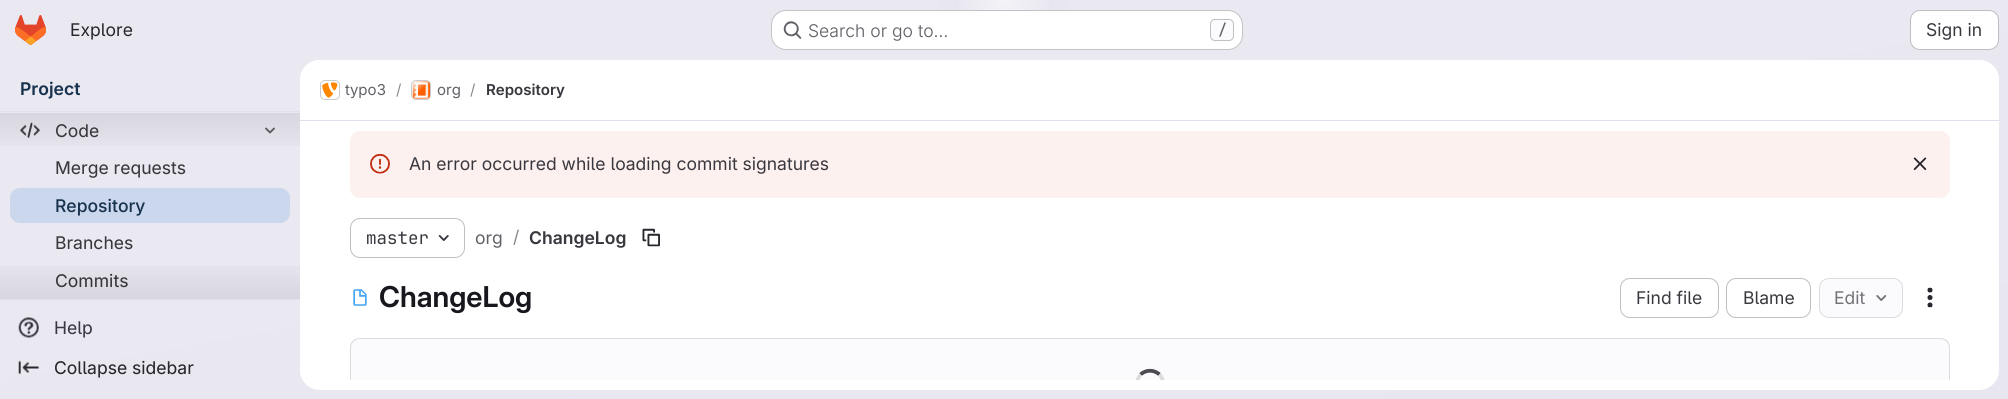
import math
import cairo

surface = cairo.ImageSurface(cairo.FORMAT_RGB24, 2008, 399)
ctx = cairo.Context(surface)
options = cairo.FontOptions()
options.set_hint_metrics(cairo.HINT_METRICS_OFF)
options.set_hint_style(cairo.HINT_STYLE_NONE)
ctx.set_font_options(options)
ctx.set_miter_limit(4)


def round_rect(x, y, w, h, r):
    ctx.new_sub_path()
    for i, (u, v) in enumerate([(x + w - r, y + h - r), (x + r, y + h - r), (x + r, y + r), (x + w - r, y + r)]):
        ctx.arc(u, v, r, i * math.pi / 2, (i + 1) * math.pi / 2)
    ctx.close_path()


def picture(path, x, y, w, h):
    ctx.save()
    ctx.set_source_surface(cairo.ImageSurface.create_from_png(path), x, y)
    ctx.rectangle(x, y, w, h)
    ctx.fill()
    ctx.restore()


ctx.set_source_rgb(1, 1, 1)
ctx.paint()
gradient = cairo.LinearGradient(1069, 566, 940, -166)
gradient.add_color_stop_rgba(0, 0.91, 0.902, 0.941, 1)
gradient.add_color_stop_rgba(0.7, 0.918, 0.914, 0.949, 1)
ctx.set_source(gradient)
ctx.rectangle(0, 0, 2008, 399)
ctx.fill()
gradient = cairo.RadialGradient(0, 0, 0, 0, 0, 1)
gradient.set_matrix(cairo.Matrix(1 / 1004, 0, 0, 1 / 400, -1 * 1004 / 1004, -1 * 0 / 400))
gradient.add_color_stop_rgba(0, 0.894, 0.886, 0.929, 1)
gradient.add_color_stop_rgba(0.09, 0.894, 0.886, 0.929, 0)
ctx.set_source(gradient)
ctx.rectangle(939, 0, 130, 10)
ctx.fill()
gradient = cairo.RadialGradient(1004, 0, 0, 1004, 0, 1081)
gradient.add_color_stop_rgba(0, 1, 1, 1, 0.6)
gradient.add_color_stop_rgba(0.05, 1, 1, 1, 0)
ctx.set_source(gradient)
ctx.rectangle(959, 0, 90, 43)
ctx.fill()
picture("img1.png", 15, 15, 31, 30)
ctx.select_font_face("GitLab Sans")
ctx.set_font_size(17.5)
ctx.set_source_rgb(0.157, 0.153, 0.176)
ctx.move_to(70, 36)
ctx.show_text("Explore")
ctx.set_source_rgb(1, 1, 1)
round_rect(771, 10, 472, 40, 15)
ctx.fill()
round_rect(771.5, 10.5, 471, 39, 14.5)
ctx.set_source_rgba(0.02, 0.02, 0.024, 0.24)
ctx.set_line_width(1)
ctx.stroke()
picture("img2.png", 783, 21, 19, 18)
ctx.select_font_face("GitLab Sans Light")
ctx.set_source_rgb(0.384, 0.38, 0.408)
ctx.move_to(808, 37)
ctx.show_text("Search or go to…")
ctx.set_source_rgb(0.984, 0.98, 0.992)
round_rect(1210.5, 19.5, 23, 21, 4.5)
ctx.fill_preserve()
ctx.set_source_rgb(0.749, 0.749, 0.765)
ctx.stroke()
ctx.select_font_face("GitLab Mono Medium")
ctx.set_font_size(15)
ctx.set_source_rgb(0.384, 0.38, 0.408)
ctx.move_to(1218, 35)
ctx.show_text("/")
ctx.set_source_rgb(1, 1, 1)
round_rect(1910.5, 10.5, 88, 39, 9.5)
ctx.fill_preserve()
ctx.set_source_rgb(0.749, 0.749, 0.765)
ctx.stroke()
ctx.select_font_face("GitLab Sans")
ctx.set_font_size(17.5)
ctx.set_source_rgb(0.227, 0.22, 0.247)
ctx.move_to(1926, 36)
ctx.show_text("Sign in")
ctx.select_font_face("GitLab Sans SemiBold")
ctx.set_source_rgb(0.094, 0.2, 0.306)
ctx.move_to(20, 95)
ctx.show_text("Project")
ctx.set_source_rgb(0.882, 0.875, 0.925)
ctx.rectangle(0, 111, 300, 1)
ctx.fill()
ctx.rectangle(0, 299, 300, 1)
ctx.fill()
picture("img3.png", 20, 122, 20, 16)
ctx.new_path()
ctx.move_to(274, 128.5)
ctx.line_to(270, 132.5)
ctx.line_to(266, 128.5)
ctx.set_source_rgb(0.384, 0.38, 0.408)
ctx.set_line_width(1.9)
ctx.set_line_cap(cairo.LINE_CAP_ROUND)
ctx.set_line_join(cairo.LINE_JOIN_ROUND)
ctx.stroke()
gradient = cairo.LinearGradient(150, 112, 150, 158)
gradient.add_color_stop_rgba(0, 0.02, 0.02, 0.024, 0.08)
gradient.add_color_stop_rgba(1, 0.02, 0.02, 0.024, 0)
ctx.set_source(gradient)
ctx.rectangle(0, 113, 300, 33)
ctx.fill()
ctx.select_font_face("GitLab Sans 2")
ctx.set_source_rgb(0.227, 0.22, 0.247)
ctx.move_to(55, 137)
ctx.show_text("Code")
ctx.move_to(55, 174)
ctx.show_text("Merge requests")
ctx.set_source_rgb(0.792, 0.843, 0.925)
round_rect(10, 188, 280, 35, 10)
ctx.fill()
ctx.select_font_face("GitLab Sans Medium")
ctx.set_source_rgb(0.094, 0.2, 0.306)
ctx.move_to(55, 212)
ctx.show_text("Repository")
ctx.select_font_face("GitLab Sans 2")
ctx.set_source_rgb(0.227, 0.22, 0.247)
ctx.move_to(55, 249)
ctx.show_text("Branches")
ctx.move_to(55, 287)
ctx.show_text("Commits")
gradient = cairo.LinearGradient(150, 254, 150, 299)
gradient.add_color_stop_rgba(0, 0.02, 0.02, 0.024, 0)
gradient.add_color_stop_rgba(1, 0.02, 0.02, 0.024, 0.08)
ctx.set_source(gradient)
ctx.rectangle(0, 266, 300, 33)
ctx.fill()
picture("img4.png", 18, 317, 21, 21)
ctx.set_source_rgb(0.227, 0.22, 0.247)
ctx.move_to(54, 334)
ctx.show_text("Help")
picture("img5.png", 18, 360, 21, 15)
ctx.set_source_rgb(0.157, 0.153, 0.176)
ctx.move_to(54, 374)
ctx.show_text("Collapse sidebar")
ctx.set_source_rgb(1, 1, 1)
round_rect(300, 60, 1699, 330, 20)
ctx.fill()
ctx.new_path()
ctx.move_to(320, 60)
ctx.line_to(1979, 60)
ctx.curve_to(1990, 60, 1999, 69, 1999, 80)
ctx.line_to(1999, 121)
ctx.line_to(300, 121)
ctx.line_to(300, 80)
ctx.curve_to(300, 69, 309, 60, 320, 60)
ctx.close_path()
ctx.fill()
ctx.set_source_rgb(0.882, 0.875, 0.925)
ctx.rectangle(300, 120, 1699, 1)
ctx.fill()
round_rect(320.5, 80.5, 19, 19, 4.5)
ctx.set_source_rgb(0.863, 0.863, 0.871)
ctx.set_line_width(1)
ctx.set_line_cap(cairo.LINE_CAP_BUTT)
ctx.set_line_join(cairo.LINE_JOIN_MITER)
ctx.stroke()
picture("img6.png", 322, 82, 16, 16)
round_rect(320.5, 80.5, 19, 19, 4.5)
ctx.set_source_rgba(0.02, 0.02, 0.024, 0.08)
ctx.stroke()
ctx.select_font_face("GitLab Sans")
ctx.set_font_size(15)
ctx.set_source_rgb(0.384, 0.38, 0.408)
ctx.move_to(345, 95)
ctx.show_text("typo3")
ctx.set_source_rgb(0.537, 0.533, 0.553)
ctx.move_to(396, 95)
ctx.show_text("/")
round_rect(411.5, 80.5, 19, 19, 4.5)
ctx.set_source_rgb(0.863, 0.863, 0.871)
ctx.stroke()
picture("img7.png", 412, 81, 18, 18)
round_rect(411.5, 80.5, 19, 19, 4.5)
ctx.set_source_rgba(0.02, 0.02, 0.024, 0.08)
ctx.stroke()
ctx.set_source_rgb(0.384, 0.38, 0.408)
ctx.move_to(437, 95)
ctx.show_text("org")
ctx.set_source_rgb(0.537, 0.533, 0.553)
ctx.move_to(470, 95)
ctx.show_text("/")
ctx.select_font_face("GitLab Sans SemiBold")
ctx.set_source_rgb(0.227, 0.22, 0.247)
ctx.move_to(486, 95)
ctx.show_text("Repository")
ctx.set_source_rgb(0.988, 0.945, 0.937)
round_rect(350, 131, 1600, 67, 10)
ctx.fill()
picture("img8.png", 370, 153, 20, 21)
ctx.select_font_face("GitLab Sans")
ctx.set_font_size(17.5)
ctx.set_source_rgb(0.227, 0.22, 0.247)
ctx.move_to(409, 170)
ctx.show_text("An error occurred while loading commit signatures")
picture("img9.png", 1913, 157, 14, 13)
round_rect(350.5, 218.5, 114, 39, 9.5)
ctx.set_source_rgb(0.749, 0.749, 0.765)
ctx.stroke()
ctx.select_font_face("GitLab Mono")
ctx.set_source_rgb(0.227, 0.22, 0.247)
ctx.move_to(366, 244)
ctx.show_text("master")
picture("img10.png", 438, 235, 11, 6)
ctx.select_font_face("GitLab Sans")
ctx.set_source_rgb(0.384, 0.38, 0.408)
ctx.move_to(475, 244)
ctx.show_text("org")
ctx.set_source_rgb(0.537, 0.533, 0.553)
ctx.move_to(513, 243)
ctx.show_text("/")
ctx.select_font_face("GitLab Sans SemiBold")
ctx.set_source_rgb(0.227, 0.22, 0.247)
ctx.move_to(529, 244)
ctx.show_text("ChangeLog")
picture("img11.png", 642, 228, 18, 19)
picture("img12.png", 353, 289, 14, 17)
ctx.select_font_face("GitLab Sans 2 SemiBold")
ctx.set_font_size(28.75)
ctx.set_source_rgb(0.094, 0.09, 0.114)
ctx.move_to(379, 307)
ctx.show_text("ChangeLog")
round_rect(1620.5, 278.5, 98, 39, 9.5)
ctx.set_source_rgb(0.749, 0.749, 0.765)
ctx.stroke()
ctx.select_font_face("GitLab Sans")
ctx.set_font_size(17.5)
ctx.set_source_rgb(0.227, 0.22, 0.247)
ctx.move_to(1636, 304)
ctx.show_text("Find file")
round_rect(1726.5, 278.5, 84, 39, 9.5)
ctx.set_source_rgb(0.749, 0.749, 0.765)
ctx.stroke()
ctx.set_source_rgb(0.227, 0.22, 0.247)
ctx.move_to(1743, 304)
ctx.show_text("Blame")
ctx.set_source_rgb(0.984, 0.98, 0.992)
round_rect(1819.5, 278.5, 83, 39, 9.5)
ctx.fill_preserve()
ctx.set_source_rgb(0.863, 0.863, 0.871)
ctx.stroke()
ctx.set_source_rgb(0.451, 0.447, 0.471)
ctx.move_to(1834, 304)
ctx.show_text("Edit")
picture("img13.png", 1876, 295, 11, 6)
picture("img14.png", 1927, 287, 6, 21)
ctx.set_source_rgb(0.984, 0.98, 0.992)
ctx.new_path()
ctx.move_to(360, 338)
ctx.line_to(1940, 338)
ctx.curve_to(1945.5, 338, 1950, 342.5, 1950, 348)
ctx.line_to(1950, 380)
ctx.line_to(350, 380)
ctx.line_to(350, 348)
ctx.curve_to(350, 342.5, 354.5, 338, 360, 338)
ctx.close_path()
ctx.fill()
ctx.save()
ctx.rectangle(300, 121, 1699, 259)
ctx.clip()
ctx.set_source_rgb(0.863, 0.863, 0.871)
ctx.new_path()
ctx.move_to(360, 338)
ctx.curve_to(354, 338, 350, 342, 350, 348)
ctx.line_to(350, 390)
ctx.line_to(351, 390)
ctx.line_to(351, 348)
ctx.curve_to(351, 343, 355, 339, 360, 339)
ctx.line_to(1940, 339)
ctx.curve_to(1945, 339, 1949, 343, 1949, 348)
ctx.line_to(1949, 390)
ctx.line_to(1950, 390)
ctx.line_to(1950, 348)
ctx.curve_to(1950, 342, 1946, 338, 1940, 338)
ctx.close_path()
ctx.fill()
ctx.restore()
ctx.new_path()
ctx.move_to(1140.5, 374.5)
ctx.curve_to(1146, 369.5, 1154, 369.5, 1159.5, 374.5)
ctx.set_source_rgb(0.298, 0.294, 0.318)
ctx.set_line_width(3.8)
ctx.stroke()
ctx.save()
ctx.rectangle(300, 121, 1699, 259)
ctx.clip()
ctx.new_path()
ctx.move_to(1159.5, 374.5)
ctx.curve_to(1162.5, 377.5, 1163.5, 382, 1163, 386.5)
ctx.curve_to(1160, 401.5, 1137, 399.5, 1137, 384)
ctx.curve_to(1137, 380.5, 1138.5, 377, 1140.5, 374.5)
ctx.set_source_rgb(0.863, 0.863, 0.871)
ctx.stroke()
ctx.restore()
surface.write_to_png("page.png")
